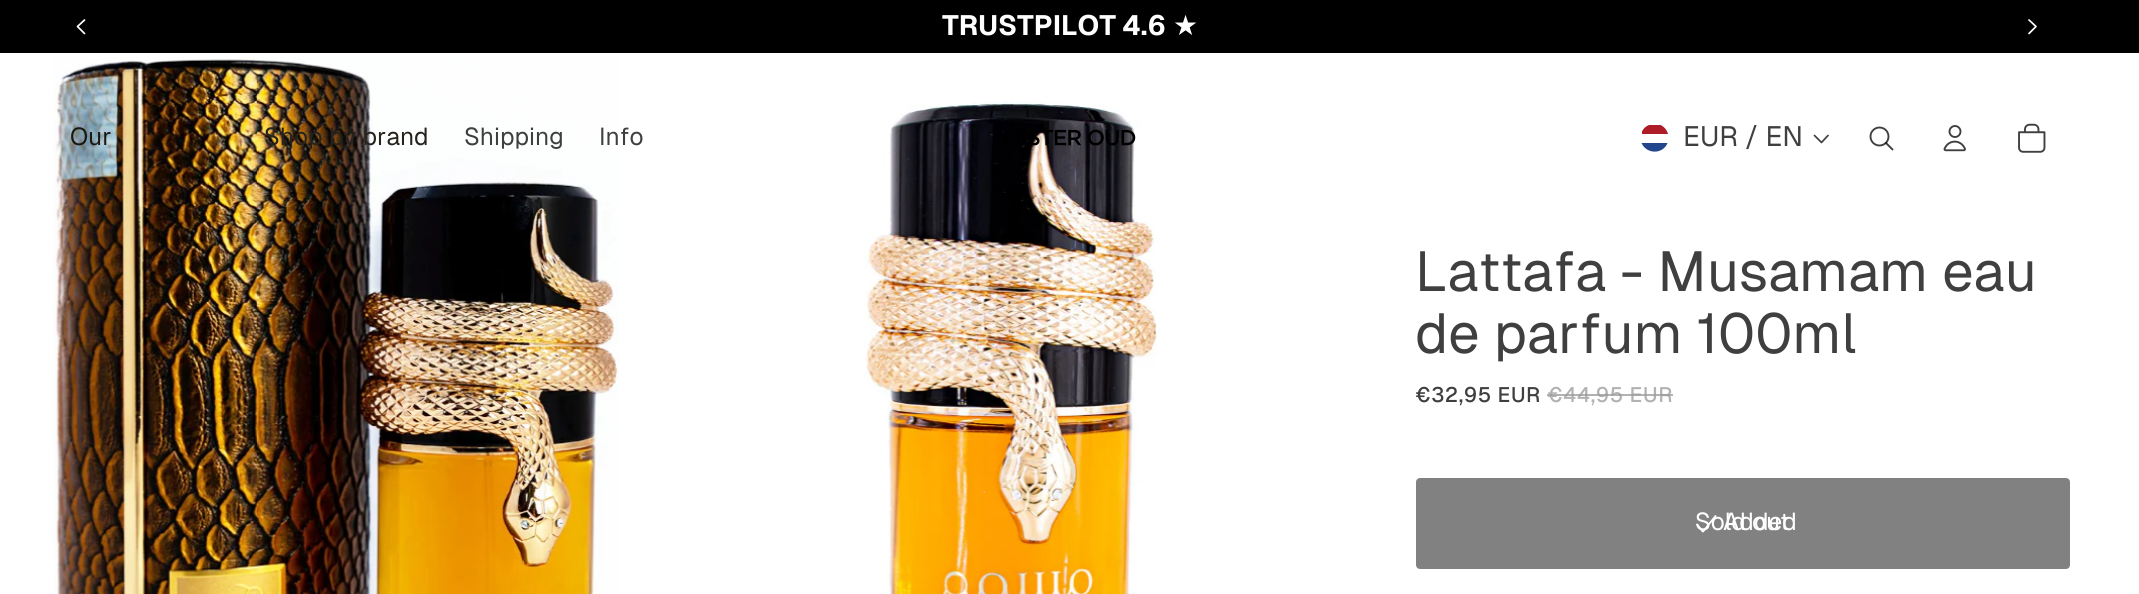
import math
import cairo

surface = cairo.ImageSurface(cairo.FORMAT_RGB24, 2139, 594)
ctx = cairo.Context(surface)
options = cairo.FontOptions()
options.set_hint_metrics(cairo.HINT_METRICS_OFF)
options.set_hint_style(cairo.HINT_STYLE_NONE)
ctx.set_font_options(options)
ctx.set_miter_limit(4)


def spaced_text(x, y, s, letter, word):
    ctx.move_to(x, y)
    for ch in s:
        ctx.show_text(ch)
        ctx.rel_move_to(letter + word * (ch == ' '), 0)


def round_rect(x, y, w, h, r):
    ctx.new_sub_path()
    for i, (u, v) in enumerate([(x + w - r, y + h - r), (x + r, y + h - r), (x + r, y + r), (x + w - r, y + r)]):
        ctx.arc(u, v, r, i * math.pi / 2, (i + 1) * math.pi / 2)
    ctx.close_path()


def picture(path, x, y, w, h):
    ctx.save()
    ctx.set_source_surface(cairo.ImageSurface.create_from_png(path), x, y)
    ctx.rectangle(x, y, w, h)
    ctx.fill()
    ctx.restore()


ctx.set_source_rgb(1, 1, 1)
ctx.paint()
ctx.set_source_rgb(0, 0, 0)
ctx.rectangle(0, 0, 2139, 53)
ctx.fill()
ctx.select_font_face("Geist", cairo.FONT_SLANT_NORMAL, cairo.FONT_WEIGHT_BOLD)
ctx.set_font_size(28)
ctx.set_source_rgb(1, 1, 1)
ctx.move_to(942, 35)
ctx.show_text("TRUSTPILOT 4.6")
ctx.select_font_face("DejaVu Sans")
ctx.move_to(1173, 35)
ctx.show_text("★")
ctx.new_path()
ctx.move_to(84.5, 20)
ctx.line_to(77.5, 26.5)
ctx.line_to(84.5, 33.5)
ctx.set_line_width(1.7)
ctx.set_line_cap(cairo.LINE_CAP_ROUND)
ctx.set_line_join(cairo.LINE_JOIN_ROUND)
ctx.stroke()
ctx.new_path()
ctx.move_to(2029, 20)
ctx.line_to(2036, 26.5)
ctx.line_to(2029, 33.5)
ctx.stroke()
picture("img4.png", 53, 57, 566, 537)
ctx.select_font_face("Geist")
ctx.set_font_size(24.5)
ctx.set_source_rgb(0.11, 0.094, 0.071)
ctx.move_to(70, 145)
ctx.show_text("Our")
ctx.set_source_rgb(0.153, 0.137, 0.11)
ctx.move_to(264, 145)
ctx.show_text("Shop by brand")
ctx.set_source_rgb(0.247, 0.247, 0.247)
ctx.move_to(464, 145)
ctx.show_text("Shipping")
ctx.move_to(599, 145)
ctx.show_text("Info")
picture("img5.png", 863, 101, 295, 493)
picture("img1.png", 1005, 129, 131, 17)
ctx.set_source_rgb(0.129, 0.275, 0.545)
ctx.new_path()
ctx.move_to(1667.5, 143)
ctx.curve_to(1663, 154.5, 1646.5, 154.5, 1641.5, 143)
ctx.close_path()
ctx.fill()
ctx.save()
ctx.rectangle(1642, 124, 28, 28)
ctx.clip()
ctx.set_source_rgb(0.682, 0.11, 0.157)
ctx.new_path()
ctx.move_to(1641, 134)
ctx.curve_to(1642, 130, 1645, 126.5, 1649, 125)
ctx.line_to(1660.5, 125)
ctx.curve_to(1664, 126.5, 1667, 130, 1668, 134)
ctx.close_path()
ctx.fill()
ctx.restore()
ctx.set_font_size(28)
ctx.set_source_rgb(0.247, 0.247, 0.247)
ctx.move_to(1683, 146)
ctx.show_text("EUR / EN")
ctx.new_path()
ctx.move_to(1828, 135.5)
ctx.line_to(1821.5, 142.5)
ctx.line_to(1814.5, 135.5)
ctx.stroke()
ctx.arc(1879.5, 136.5, 9, 0, 2 * math.pi)
ctx.set_line_width(1.9)
ctx.set_line_cap(cairo.LINE_CAP_BUTT)
ctx.set_line_join(cairo.LINE_JOIN_MITER)
ctx.stroke()
ctx.new_path()
ctx.move_to(1886, 143)
ctx.line_to(1892.5, 149.5)
ctx.set_source_rgba(0.012, 0.012, 0.008, 0.76)
ctx.set_line_cap(cairo.LINE_CAP_ROUND)
ctx.set_line_join(cairo.LINE_JOIN_ROUND)
ctx.stroke()
picture("img2.png", 1943, 125, 23, 27)
picture("img3.png", 2018, 123, 28, 30)
ctx.set_font_size(56)
ctx.set_source_rgb(0.247, 0.247, 0.247)
ctx.move_to(1415, 291)
ctx.show_text("Lattafa - Musamam eau")
ctx.move_to(1415, 353)
ctx.show_text("de parfum 100ml")
ctx.select_font_face("Geist Medium")
ctx.set_font_size(21)
spaced_text(1415, 402, "€32,95 EUR", 0.6, 0)
ctx.set_source_rgb(0.698, 0.698, 0.698)
spaced_text(1547, 402, "€44,95 EUR", 0.6, 0)
ctx.set_source_rgba(0.604, 0.604, 0.604, 0.76)
ctx.rectangle(1547, 394, 126, 2)
ctx.fill()
ctx.set_source_rgb(0.506, 0.506, 0.506)
round_rect(1417, 479, 652, 89, 3)
ctx.fill_preserve()
ctx.set_line_width(2)
ctx.set_line_cap(cairo.LINE_CAP_BUTT)
ctx.set_line_join(cairo.LINE_JOIN_MITER)
ctx.stroke()
ctx.select_font_face("Geist")
ctx.set_font_size(24.5)
ctx.set_source_rgb(1, 1, 1)
ctx.move_to(1695, 530)
ctx.show_text("Sold out")
ctx.new_path()
ctx.move_to(1697, 524.5)
ctx.line_to(1701.5, 530)
ctx.curve_to(1703.5, 532.5, 1702.5, 532, 1705.5, 528.5)
ctx.line_to(1715.5, 516)
ctx.set_line_width(1.8)
ctx.set_line_cap(cairo.LINE_CAP_ROUND)
ctx.set_line_join(cairo.LINE_JOIN_ROUND)
ctx.stroke()
ctx.move_to(1723, 530)
ctx.show_text("Added")
surface.write_to_png("page.png")
